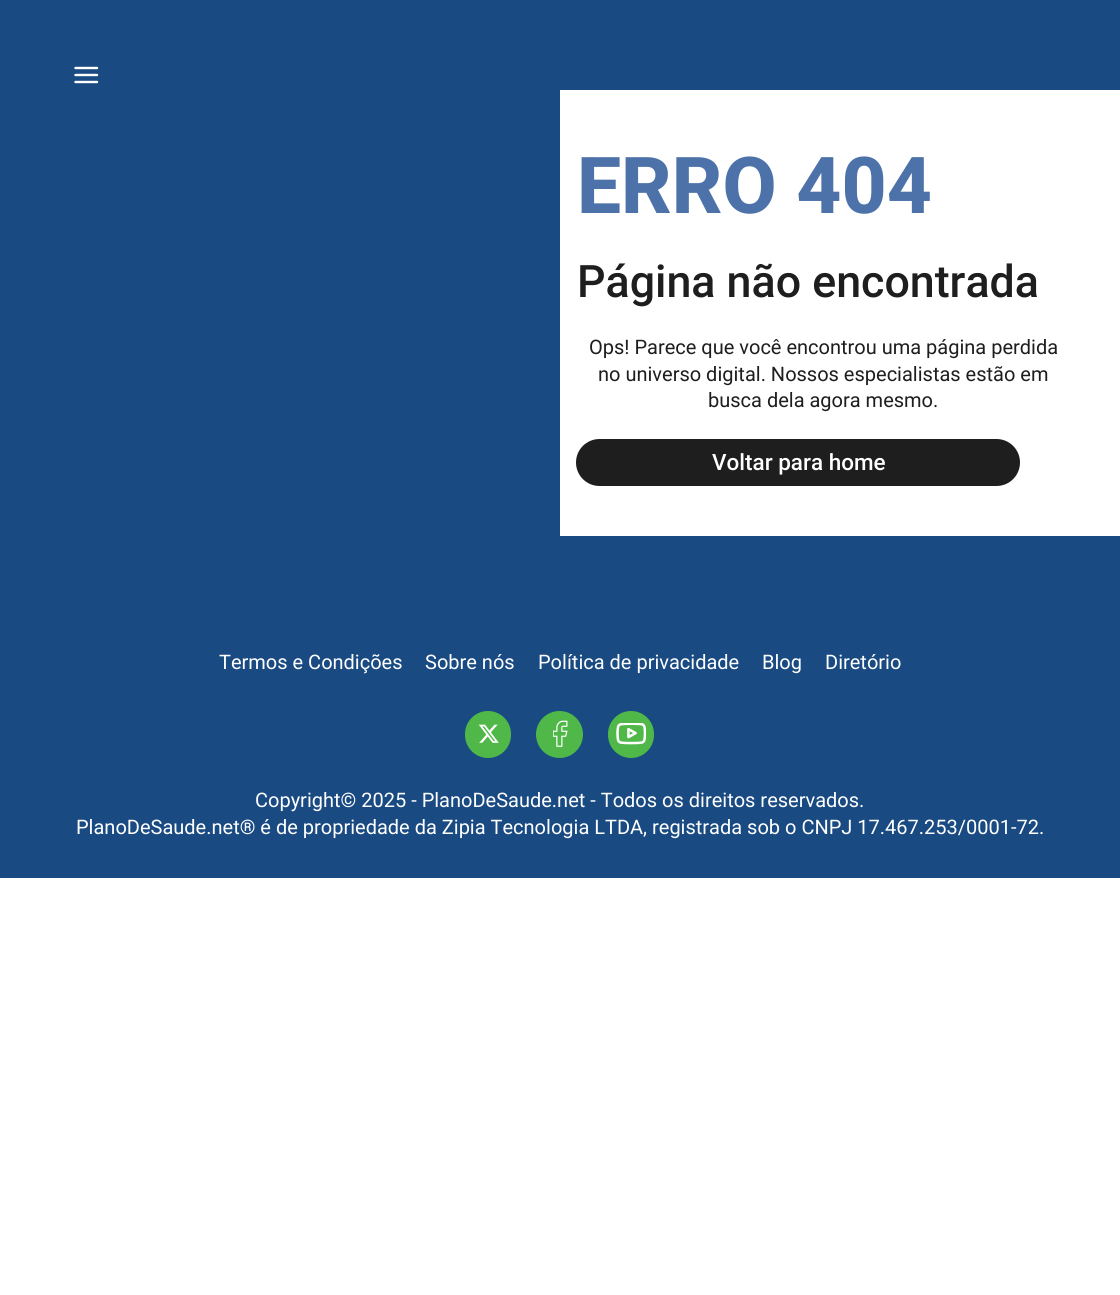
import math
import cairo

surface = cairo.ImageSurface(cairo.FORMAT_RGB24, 1120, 1295)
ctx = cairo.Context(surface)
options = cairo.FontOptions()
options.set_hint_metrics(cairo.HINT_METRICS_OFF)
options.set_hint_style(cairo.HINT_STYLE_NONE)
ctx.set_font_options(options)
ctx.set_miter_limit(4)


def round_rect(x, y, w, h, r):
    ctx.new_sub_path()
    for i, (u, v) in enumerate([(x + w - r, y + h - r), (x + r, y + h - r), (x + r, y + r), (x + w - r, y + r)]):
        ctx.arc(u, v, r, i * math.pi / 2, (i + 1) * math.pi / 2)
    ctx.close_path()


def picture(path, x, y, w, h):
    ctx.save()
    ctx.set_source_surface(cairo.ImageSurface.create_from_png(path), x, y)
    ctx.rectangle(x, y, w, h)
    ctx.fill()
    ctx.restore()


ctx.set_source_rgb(1, 1, 1)
ctx.paint()
ctx.set_source_rgb(0.098, 0.29, 0.51)
ctx.rectangle(0, 0, 1120, 90)
ctx.fill()
ctx.new_path()
ctx.move_to(75.5, 75)
ctx.line_to(97, 75)
ctx.move_to(75.5, 68)
ctx.line_to(97, 68)
ctx.move_to(75.5, 82)
ctx.line_to(97, 82)
ctx.set_source_rgb(1, 1, 1)
ctx.set_line_width(2.4)
ctx.set_line_cap(cairo.LINE_CAP_ROUND)
ctx.set_line_join(cairo.LINE_JOIN_ROUND)
ctx.stroke()
ctx.set_source_rgb(0.098, 0.29, 0.51)
ctx.rectangle(0, 90, 560, 446)
ctx.fill()
ctx.select_font_face("Roboto ExtraBold")
ctx.set_font_size(78.5)
ctx.set_source_rgb(0.302, 0.447, 0.667)
ctx.move_to(577, 213)
ctx.show_text("ERRO 404")
ctx.select_font_face("Roboto Medium")
ctx.set_font_size(44.75)
ctx.set_source_rgb(0.118, 0.118, 0.118)
ctx.move_to(577, 297)
ctx.show_text("Página não encontrada")
ctx.select_font_face("Roboto")
ctx.set_font_size(20)
ctx.move_to(589, 354)
ctx.show_text("Ops! Parece que você encontrou uma página perdida")
ctx.move_to(598, 381)
ctx.show_text("no universo digital. Nossos especialistas estão em")
ctx.move_to(708, 407)
ctx.show_text("busca dela agora mesmo.")
round_rect(576, 439, 444, 47, 23.5)
ctx.fill()
ctx.select_font_face("Roboto Medium")
ctx.set_font_size(22.5)
ctx.set_source_rgb(1, 1, 1)
ctx.move_to(712, 470)
ctx.show_text("Voltar para home")
ctx.set_source_rgb(0.098, 0.29, 0.51)
ctx.rectangle(0, 536, 1120, 342)
ctx.fill()
ctx.select_font_face("Roboto")
ctx.set_font_size(20)
ctx.set_source_rgb(1, 1, 1)
ctx.move_to(219, 669)
ctx.show_text("Termos e Condições")
ctx.move_to(425, 669)
ctx.show_text("Sobre nós")
ctx.move_to(538, 669)
ctx.show_text("Política de privacidade")
ctx.move_to(762, 669)
ctx.show_text("Blog")
ctx.move_to(825, 669)
ctx.show_text("Diretório")
ctx.set_source_rgb(0.314, 0.722, 0.282)
round_rect(465, 711, 46, 47, 23)
ctx.fill()
picture("img1.png", 479, 724, 20, 19)
ctx.arc(559.5, 734.5, 23.5, 0, 2 * math.pi)
ctx.fill()
picture("img2.png", 553, 720, 15, 27)
round_rect(608, 711, 46, 47, 23)
ctx.fill()
picture("img3.png", 616, 723, 30, 22)
ctx.set_source_rgb(1, 1, 1)
ctx.move_to(255, 807)
ctx.show_text("Copyright© 2025 - PlanoDeSaude.net - Todos os direitos reservados.")
ctx.move_to(76, 834)
ctx.show_text("PlanoDeSaude.net® é de propriedade da Zipia Tecnologia LTDA, registrada sob o CNPJ 17.467.253/0001-72.")
surface.write_to_png("page.png")
